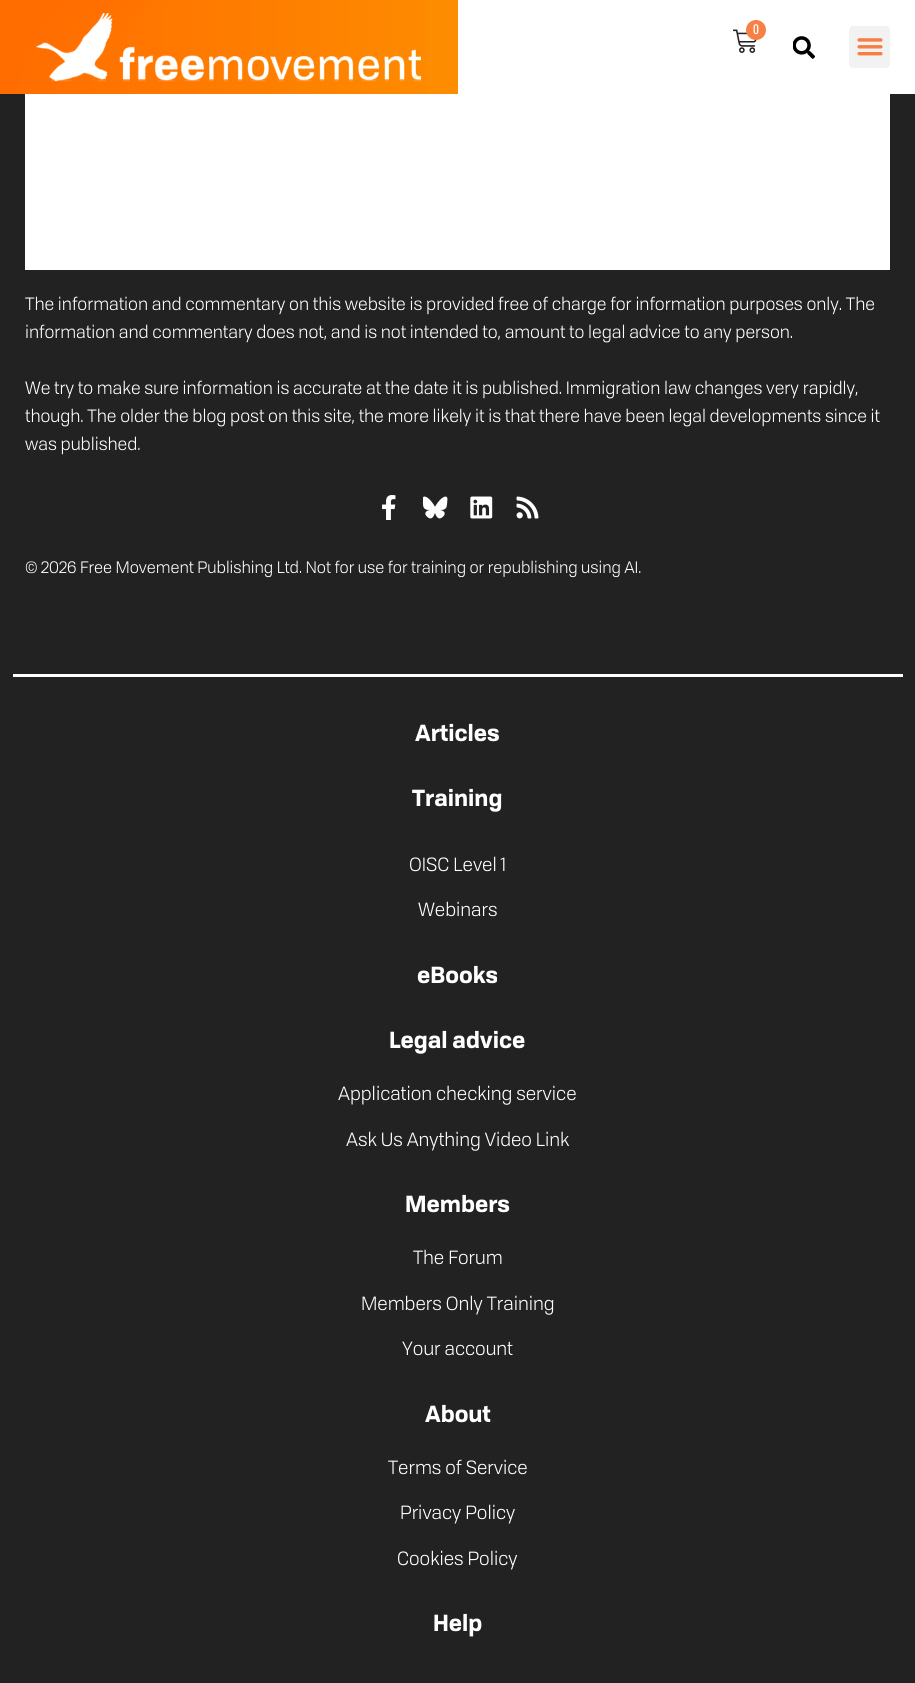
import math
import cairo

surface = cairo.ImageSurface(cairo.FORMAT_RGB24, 915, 1683)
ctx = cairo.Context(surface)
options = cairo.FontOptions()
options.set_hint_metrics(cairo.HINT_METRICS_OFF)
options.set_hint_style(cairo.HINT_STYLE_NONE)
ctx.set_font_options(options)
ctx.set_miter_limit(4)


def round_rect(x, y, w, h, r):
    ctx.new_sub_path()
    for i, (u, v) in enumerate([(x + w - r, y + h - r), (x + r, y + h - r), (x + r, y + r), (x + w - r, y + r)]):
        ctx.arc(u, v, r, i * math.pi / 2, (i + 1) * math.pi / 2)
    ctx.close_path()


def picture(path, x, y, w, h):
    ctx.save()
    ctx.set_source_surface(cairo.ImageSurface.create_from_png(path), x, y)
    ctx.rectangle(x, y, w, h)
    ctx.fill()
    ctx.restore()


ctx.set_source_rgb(0.133, 0.133, 0.133)
ctx.paint()
ctx.set_source_rgb(1, 1, 1)
ctx.rectangle(458, 0, 457, 94)
ctx.fill()
gradient = cairo.LinearGradient(166, -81, 291, 175)
gradient.add_color_stop_rgba(0, 1, 0.4, 0, 1)
gradient.add_color_stop_rgba(0.28, 0.996, 0.549, 0, 1)
ctx.set_source(gradient)
ctx.rectangle(3, 0, 455, 94)
ctx.fill()
gradient = cairo.LinearGradient(458, 47, 0, 47)
gradient.add_color_stop_rgba(0, 1, 0.424, 0, 0)
gradient.add_color_stop_rgba(1, 1, 0.424, 0, 1)
ctx.set_source(gradient)
ctx.rectangle(0, 0, 427, 94)
ctx.fill()
picture("img1.png", 36, 13, 385, 69)
picture("img2.png", 733, 29, 24, 24)
ctx.set_source_rgb(0.965, 0.502, 0.267)
ctx.arc(756, 30, 10, 0, 2 * math.pi)
ctx.fill()
ctx.select_font_face("Oswald")
ctx.set_font_size(12)
ctx.set_source_rgb(1, 1, 1)
ctx.move_to(753, 34)
ctx.show_text("0")
picture("img3.png", 793, 36, 22, 23)
ctx.set_source_rgb(0.949, 0.949, 0.949)
round_rect(849, 26, 41, 42, 4)
ctx.fill()
picture("img4.png", 857, 38, 26, 18)
ctx.set_source_rgb(1, 1, 1)
ctx.rectangle(25, 94, 865, 176)
ctx.fill()
ctx.select_font_face("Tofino")
ctx.set_font_size(17.5)
ctx.move_to(25, 310)
ctx.show_text("The information and commentary on this website is provided free of charge for information purposes only. The")
ctx.move_to(25, 338)
ctx.show_text("information and commentary does not, and is not intended to, amount to legal advice to any person.")
ctx.move_to(25, 394)
ctx.show_text("We try to make sure information is accurate at the date it is published. Immigration law changes very rapidly,")
ctx.move_to(25, 422)
ctx.show_text("though. The older the blog post on this site, the more likely it is that there have been legal developments since it")
ctx.move_to(25, 450)
ctx.show_text("was published.")
picture("img5.png", 382, 495, 14, 25)
picture("img6.png", 423, 496, 25, 23)
picture("img7.png", 470, 496, 23, 23)
picture("img8.png", 516, 496, 23, 23)
ctx.set_font_size(16.25)
ctx.move_to(25, 573)
ctx.show_text("© 2026 Free Movement Publishing Ltd. Not for use for training or republishing using AI.")
ctx.rectangle(13, 674, 890, 3)
ctx.fill()
ctx.select_font_face("Tofino", cairo.FONT_SLANT_NORMAL, cairo.FONT_WEIGHT_BOLD)
ctx.set_font_size(22.5)
ctx.move_to(415, 741)
ctx.show_text("Articles")
ctx.move_to(412, 806)
ctx.show_text("Training")
ctx.select_font_face("Tofino")
ctx.set_font_size(18.75)
ctx.move_to(409, 871)
ctx.show_text("OISC Level 1")
ctx.move_to(418, 916)
ctx.show_text("Webinars")
ctx.select_font_face("Tofino", cairo.FONT_SLANT_NORMAL, cairo.FONT_WEIGHT_BOLD)
ctx.set_font_size(22.5)
ctx.move_to(417, 983)
ctx.show_text("eBooks")
ctx.move_to(389, 1048)
ctx.show_text("Legal advice")
ctx.select_font_face("Tofino")
ctx.set_font_size(18.75)
ctx.move_to(338, 1100)
ctx.show_text("Application checking service")
ctx.move_to(346, 1146)
ctx.show_text("Ask Us Anything Video Link")
ctx.select_font_face("Tofino", cairo.FONT_SLANT_NORMAL, cairo.FONT_WEIGHT_BOLD)
ctx.set_font_size(22.5)
ctx.move_to(405, 1212)
ctx.show_text("Members")
ctx.select_font_face("Tofino")
ctx.set_font_size(18.75)
ctx.move_to(413, 1264)
ctx.show_text("The Forum")
ctx.move_to(361, 1310)
ctx.show_text("Members Only Training")
ctx.move_to(402, 1355)
ctx.show_text("Your account")
ctx.select_font_face("Tofino", cairo.FONT_SLANT_NORMAL, cairo.FONT_WEIGHT_BOLD)
ctx.set_font_size(22.5)
ctx.move_to(425, 1422)
ctx.show_text("About")
ctx.select_font_face("Tofino")
ctx.set_font_size(18.75)
ctx.move_to(388, 1474)
ctx.show_text("Terms of Service")
ctx.move_to(400, 1519)
ctx.show_text("Privacy Policy")
ctx.move_to(397, 1565)
ctx.show_text("Cookies Policy")
ctx.select_font_face("Tofino", cairo.FONT_SLANT_NORMAL, cairo.FONT_WEIGHT_BOLD)
ctx.set_font_size(22.5)
ctx.move_to(433, 1631)
ctx.show_text("Help")
surface.write_to_png("page.png")
